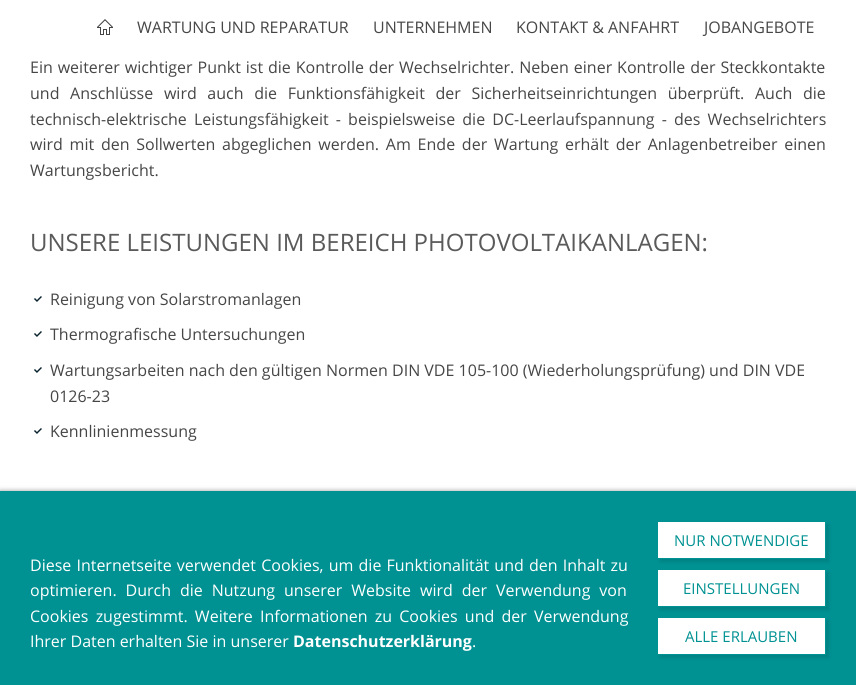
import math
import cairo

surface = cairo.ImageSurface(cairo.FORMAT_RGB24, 856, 685)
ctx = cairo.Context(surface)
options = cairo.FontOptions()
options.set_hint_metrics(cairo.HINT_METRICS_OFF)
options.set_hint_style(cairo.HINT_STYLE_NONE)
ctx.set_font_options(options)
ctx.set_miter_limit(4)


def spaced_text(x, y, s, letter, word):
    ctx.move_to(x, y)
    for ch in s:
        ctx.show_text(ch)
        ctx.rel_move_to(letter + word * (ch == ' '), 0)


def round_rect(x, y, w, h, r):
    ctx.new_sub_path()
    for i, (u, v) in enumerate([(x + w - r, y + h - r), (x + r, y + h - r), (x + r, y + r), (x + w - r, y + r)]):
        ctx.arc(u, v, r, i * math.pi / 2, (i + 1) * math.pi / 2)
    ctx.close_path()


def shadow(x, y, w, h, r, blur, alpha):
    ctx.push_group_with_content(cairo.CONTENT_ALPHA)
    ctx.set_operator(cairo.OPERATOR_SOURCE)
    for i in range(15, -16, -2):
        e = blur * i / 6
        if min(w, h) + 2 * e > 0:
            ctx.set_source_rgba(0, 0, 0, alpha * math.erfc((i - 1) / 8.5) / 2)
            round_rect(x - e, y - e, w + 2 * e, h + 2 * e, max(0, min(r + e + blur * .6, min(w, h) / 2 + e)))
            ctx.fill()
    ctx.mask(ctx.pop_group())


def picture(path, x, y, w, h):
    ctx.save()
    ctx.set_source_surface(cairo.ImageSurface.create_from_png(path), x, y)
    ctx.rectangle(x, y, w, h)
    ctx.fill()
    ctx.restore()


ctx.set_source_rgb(1, 1, 1)
ctx.paint()
picture("img1.png", 97, 19, 16, 16)
ctx.select_font_face("Open Sans")
ctx.set_font_size(16)
ctx.set_source_rgb(0.275, 0.275, 0.275)
ctx.move_to(137, 33)
ctx.show_text("WARTUNG UND REPARATUR")
ctx.move_to(373, 33)
ctx.show_text("UNTERNEHMEN")
ctx.move_to(516, 33)
ctx.show_text("KONTAKT & ANFAHRT")
ctx.move_to(704, 33)
ctx.show_text("JOBANGEBOTE")
spaced_text(30, 73, "Ein weiterer wichtiger Punkt ist die Kontrolle der Wechselrichter. Neben einer Kontrolle der Steckkontakte", 0, 0.75)
spaced_text(30, 99, "und Anschlüsse wird auch die Funktionsfähigkeit der Sicherheitseinrichtungen überprüft. Auch die", 0, 6.5)
spaced_text(30, 125, "technisch-elektrische Leistungsfähigkeit - beispielsweise die DC-Leerlaufspannung - des Wechselrichters", 0, 3)
spaced_text(30, 150, "wird mit den Sollwerten abgeglichen werden. Am Ende der Wartung erhält der Anlagenbetreiber einen", 0, 2.6)
ctx.move_to(30, 176)
ctx.show_text("Wartungsbericht.")
ctx.set_font_size(24)
ctx.set_source_rgb(0.353, 0.353, 0.353)
ctx.move_to(30, 251)
ctx.show_text("UNSERE LEISTUNGEN IM BEREICH PHOTOVOLTAIKANLAGEN:")
picture("img2.png", 34, 296, 8, 6)
ctx.set_font_size(16)
ctx.set_source_rgb(0.275, 0.275, 0.275)
ctx.move_to(50, 305)
ctx.show_text("Reinigung von Solarstromanlagen")
picture("img2.png", 34, 331, 8, 6)
ctx.move_to(50, 340)
ctx.show_text("Thermografische Untersuchungen")
picture("img2.png", 34, 367, 8, 6)
ctx.move_to(50, 376)
ctx.show_text("Wartungsarbeiten nach den gültigen Normen DIN VDE 105-100 (Wiederholungsprüfung) und DIN VDE")
ctx.move_to(50, 402)
ctx.show_text("0126-23")
picture("img2.png", 34, 428, 8, 6)
ctx.move_to(50, 437)
ctx.show_text("Kennlinienmessung")
ctx.set_source_rgb(0, 0, 0)
shadow(0, 491, 856, 194, 0, 2.5, 0.4)
ctx.set_source_rgb(0, 0.569, 0.573)
ctx.rectangle(0, 491, 856, 194)
ctx.fill()
ctx.set_source_rgb(1, 1, 1)
spaced_text(30, 571, "Diese Internetseite verwendet Cookies, um die Funktionalität und den Inhalt zu", 0, 1)
spaced_text(30, 596, "optimieren. Durch die Nutzung unserer Website wird der Verwendung von", 0, 4.75)
spaced_text(30, 622, "Cookies zugestimmt. Weitere Informationen zu Cookies und der Verwendung", 0, 3)
ctx.move_to(30, 647)
ctx.show_text("Ihrer Daten erhalten Sie in unserer")
ctx.select_font_face("Open Sans", cairo.FONT_SLANT_NORMAL, cairo.FONT_WEIGHT_BOLD)
ctx.move_to(293, 647)
ctx.show_text("Datenschutzerklärung")
ctx.select_font_face("Open Sans")
ctx.move_to(472, 647)
ctx.show_text(".")
ctx.set_source_rgb(0, 0, 0)
shadow(660, 524, 169, 38, 0, 1.5, 0.1)
ctx.set_source_rgb(1, 1, 1)
ctx.rectangle(657.5, 521.5, 168, 37)
ctx.fill_preserve()
ctx.set_source_rgb(0, 0.569, 0.573)
ctx.set_line_width(1)
ctx.stroke()
ctx.set_font_size(15)
ctx.move_to(674, 546)
ctx.show_text("NUR NOTWENDIGE")
ctx.set_source_rgb(0, 0, 0)
shadow(660, 572, 169, 38, 0, 1.5, 0.1)
ctx.set_source_rgb(1, 1, 1)
ctx.rectangle(657.5, 569.5, 168, 37)
ctx.fill_preserve()
ctx.set_source_rgb(0, 0.569, 0.573)
ctx.stroke()
ctx.move_to(683, 594)
ctx.show_text("EINSTELLUNGEN")
ctx.set_source_rgb(0, 0, 0)
shadow(660, 620, 169, 38, 0, 1.5, 0.1)
ctx.set_source_rgb(1, 1, 1)
ctx.rectangle(657.5, 617.5, 168, 37)
ctx.fill_preserve()
ctx.set_source_rgb(0, 0.569, 0.573)
ctx.stroke()
ctx.move_to(685, 642)
ctx.show_text("ALLE ERLAUBEN")
surface.write_to_png("page.png")
